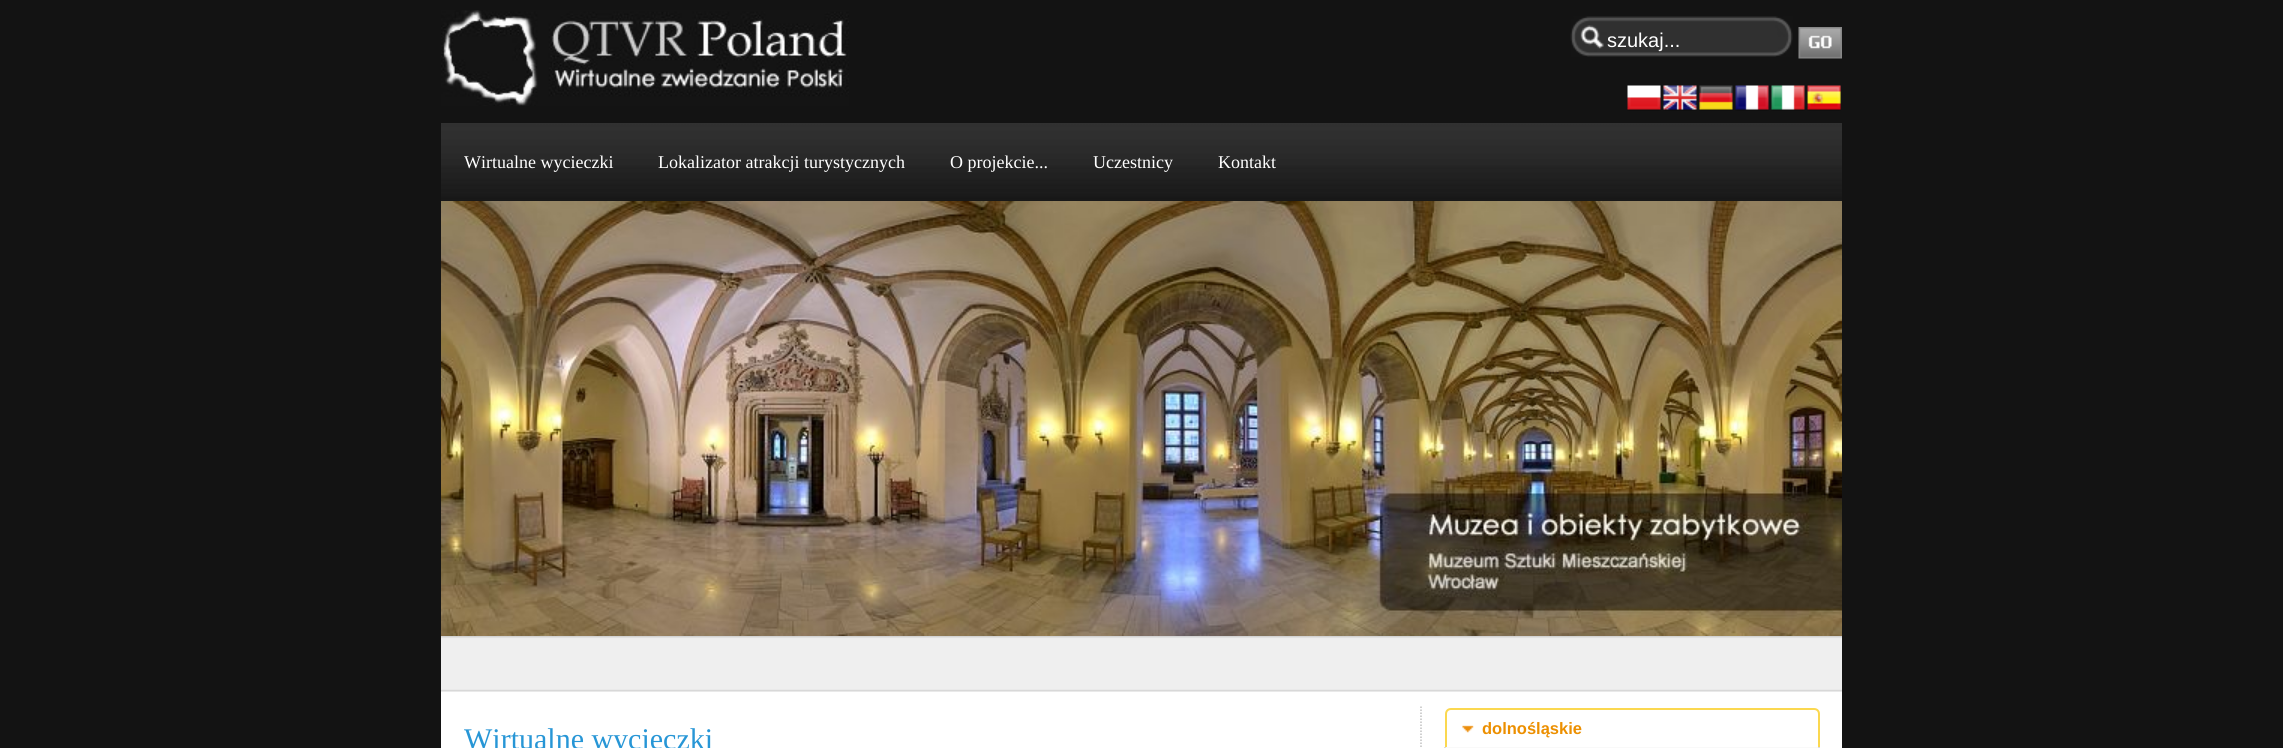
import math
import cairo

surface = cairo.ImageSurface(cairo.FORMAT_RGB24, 2283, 748)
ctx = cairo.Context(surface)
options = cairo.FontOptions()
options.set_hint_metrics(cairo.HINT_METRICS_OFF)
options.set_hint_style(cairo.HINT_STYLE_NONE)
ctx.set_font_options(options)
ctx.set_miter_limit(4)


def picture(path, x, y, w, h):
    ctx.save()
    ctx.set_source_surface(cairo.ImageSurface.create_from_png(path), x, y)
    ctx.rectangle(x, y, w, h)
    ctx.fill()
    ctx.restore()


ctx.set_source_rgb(0.078, 0.078, 0.078)
ctx.paint()
ctx.set_source_rgb(1, 1, 1)
ctx.rectangle(441, 691, 1401, 57)
ctx.fill()
picture("img1.png", 441, 10, 408, 96)
picture("img2.png", 1570, 16, 223, 41)
ctx.select_font_face("Liberation Sans")
ctx.set_font_size(20)
ctx.move_to(1607, 47)
ctx.show_text("szukaj...")
picture("img3.png", 1798, 27, 44, 32)
picture("img4.png", 1627, 85, 34, 26)
picture("img5.png", 1663, 85, 34, 26)
picture("img6.png", 1699, 85, 34, 26)
picture("img7.png", 1735, 85, 34, 26)
picture("img8.png", 1771, 85, 34, 26)
picture("img9.png", 1807, 85, 34, 26)
picture("img10.png", 441, 123, 1401, 78)
ctx.select_font_face("Liberation Serif")
ctx.set_font_size(18)
ctx.move_to(464, 168)
ctx.show_text("Wirtualne wycieczki")
ctx.move_to(658, 168)
ctx.show_text("Lokalizator atrakcji turystycznych")
ctx.move_to(950, 168)
ctx.show_text("O projekcie...")
ctx.move_to(1093, 168)
ctx.show_text("Uczestnicy")
ctx.move_to(1218, 168)
ctx.show_text("Kontakt")
picture("img11.png", 441, 201, 1401, 435)
picture("img12.png", 441, 636, 1401, 56)
ctx.set_font_size(30)
ctx.set_source_rgb(0.153, 0.588, 0.839)
ctx.move_to(464, 749)
ctx.show_text("Wirtualne wycieczki")
ctx.new_path()
ctx.move_to(1421, 706.5)
ctx.line_to(1421, 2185.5)
ctx.set_source_rgb(0.753, 0.753, 0.753)
ctx.set_line_width(1.5)
ctx.set_dash([1.5, 1.5])
ctx.stroke()
ctx.new_path()
ctx.move_to(1451, 709)
ctx.line_to(1814, 709)
ctx.curve_to(1817, 709, 1819, 711, 1819, 714)
ctx.line_to(1819, 748)
ctx.line_to(1446, 748)
ctx.line_to(1446, 714)
ctx.curve_to(1446, 711, 1448, 709, 1451, 709)
ctx.close_path()
ctx.set_source_rgb(0.984, 0.847, 0.314)
ctx.set_line_width(2)
ctx.set_dash([])
ctx.stroke()
picture("img13.png", 1462, 725, 12, 8)
ctx.select_font_face("Liberation Sans", cairo.FONT_SLANT_NORMAL, cairo.FONT_WEIGHT_BOLD)
ctx.set_font_size(16.5)
ctx.set_source_rgb(0.922, 0.561, 0)
ctx.move_to(1482, 734)
ctx.show_text("dolnośląskie")
ctx.set_source_rgb(0.973, 0.973, 0.973)
ctx.rectangle(1445, 747, 374, 1)
ctx.fill()
ctx.set_source_rgb(0.867, 0.867, 0.867)
ctx.set_fill_rule(cairo.FILL_RULE_EVEN_ODD)
ctx.new_path()
ctx.move_to(1444, 747)
ctx.line_to(1820, 747)
ctx.line_to(1820, 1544)
ctx.curve_to(1820, 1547, 1817, 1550, 1814, 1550)
ctx.line_to(1450, 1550)
ctx.curve_to(1447, 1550, 1444, 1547, 1444, 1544)
ctx.close_path()
ctx.move_to(1446, 747)
ctx.line_to(1818, 747)
ctx.line_to(1818, 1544)
ctx.curve_to(1818, 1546, 1816, 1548, 1814, 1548)
ctx.line_to(1450, 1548)
ctx.curve_to(1448, 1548, 1446, 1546, 1446, 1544)
ctx.close_path()
ctx.fill()
surface.write_to_png("page.png")
